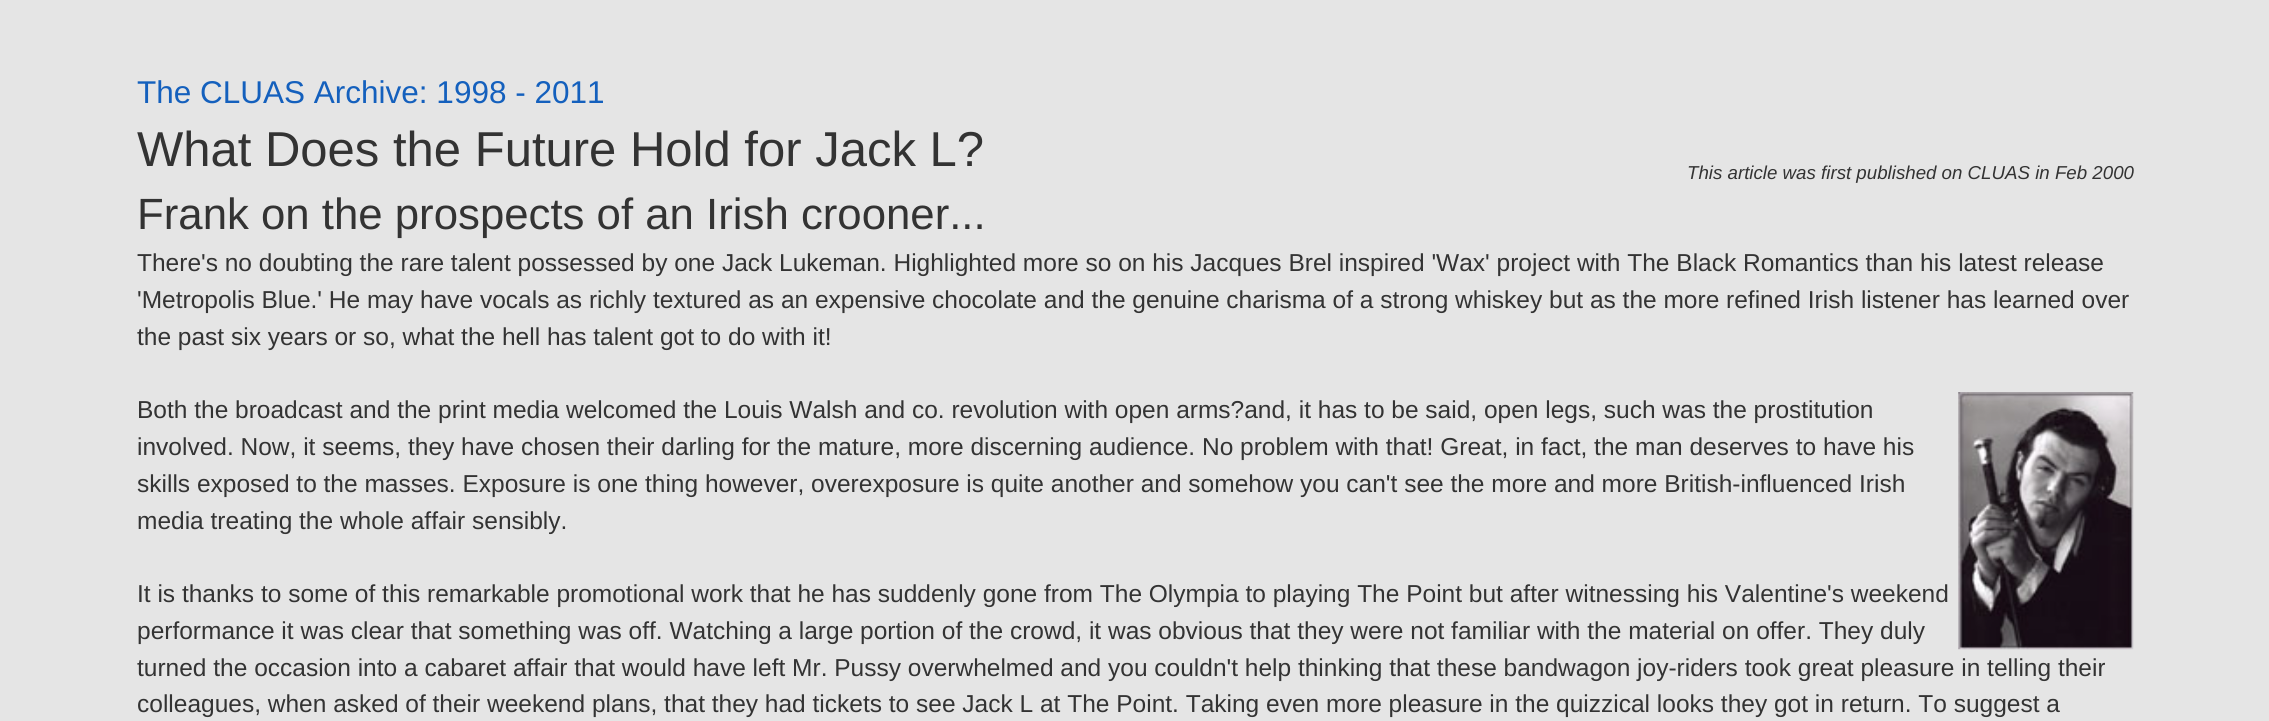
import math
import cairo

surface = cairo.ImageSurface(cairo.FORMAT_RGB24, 2269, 721)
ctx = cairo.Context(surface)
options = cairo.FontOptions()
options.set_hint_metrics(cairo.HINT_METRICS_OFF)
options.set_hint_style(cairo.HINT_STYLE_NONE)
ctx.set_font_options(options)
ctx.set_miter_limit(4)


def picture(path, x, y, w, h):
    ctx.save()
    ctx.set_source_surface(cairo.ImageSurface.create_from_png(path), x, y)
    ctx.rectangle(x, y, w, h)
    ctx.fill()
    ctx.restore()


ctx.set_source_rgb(0.898, 0.898, 0.898)
ctx.paint()
ctx.select_font_face("Liberation Sans")
ctx.set_font_size(31.5)
ctx.set_source_rgb(0.082, 0.376, 0.741)
ctx.move_to(137, 103)
ctx.show_text("The CLUAS Archive: 1998 - 2011")
ctx.set_font_size(49)
ctx.set_source_rgb(0.2, 0.2, 0.2)
ctx.move_to(137, 166)
ctx.show_text("What Does the Future Hold for Jack L?")
ctx.select_font_face("Liberation Sans", cairo.FONT_SLANT_ITALIC)
ctx.set_font_size(18.7)
ctx.move_to(1687, 179)
ctx.show_text("This article was first published on CLUAS in Feb 2000")
ctx.select_font_face("Liberation Sans")
ctx.set_font_size(43.75)
ctx.move_to(137, 229)
ctx.show_text("Frank on the prospects of an Irish crooner...")
ctx.set_font_size(24.5)
ctx.move_to(137, 271)
ctx.show_text("There's no doubting the rare talent possessed by one Jack Lukeman. Highlighted more so on his Jacques Brel inspired 'Wax' project with The Black Romantics than his latest release")
ctx.move_to(137, 308)
ctx.show_text("'Metropolis Blue.' He may have vocals as richly textured as an expensive chocolate and the genuine charisma of a strong whiskey but as the more refined Irish listener has learned over")
ctx.move_to(137, 345)
ctx.show_text("the past six years or so, what the hell has talent got to do with it!")
ctx.move_to(137, 418)
ctx.show_text("Both the broadcast and the print media welcomed the Louis Walsh and co. revolution with open arms?and, it has to be said, open legs, such was the prostitution")
picture("img1.png", 1958, 392, 176, 258)
ctx.move_to(137, 455)
ctx.show_text("involved. Now, it seems, they have chosen their darling for the mature, more discerning audience. No problem with that! Great, in fact, the man deserves to have his")
ctx.move_to(137, 492)
ctx.show_text("skills exposed to the masses. Exposure is one thing however, overexposure is quite another and somehow you can't see the more and more British-influenced Irish")
ctx.move_to(137, 529)
ctx.show_text("media treating the whole affair sensibly.")
ctx.move_to(137, 602)
ctx.show_text("It is thanks to some of this remarkable promotional work that he has suddenly gone from The Olympia to playing The Point but after witnessing his Valentine's weekend")
ctx.move_to(137, 639)
ctx.show_text("performance it was clear that something was off. Watching a large portion of the crowd, it was obvious that they were not familiar with the material on offer. They duly")
ctx.move_to(137, 676)
ctx.show_text("turned the occasion into a cabaret affair that would have left Mr. Pussy overwhelmed and you couldn't help thinking that these bandwagon joy-riders took great pleasure in telling their")
ctx.move_to(137, 712)
ctx.show_text("colleagues, when asked of their weekend plans, that they had tickets to see Jack L at The Point. Taking even more pleasure in the quizzical looks they got in return. To suggest a")
surface.write_to_png("page.png")
